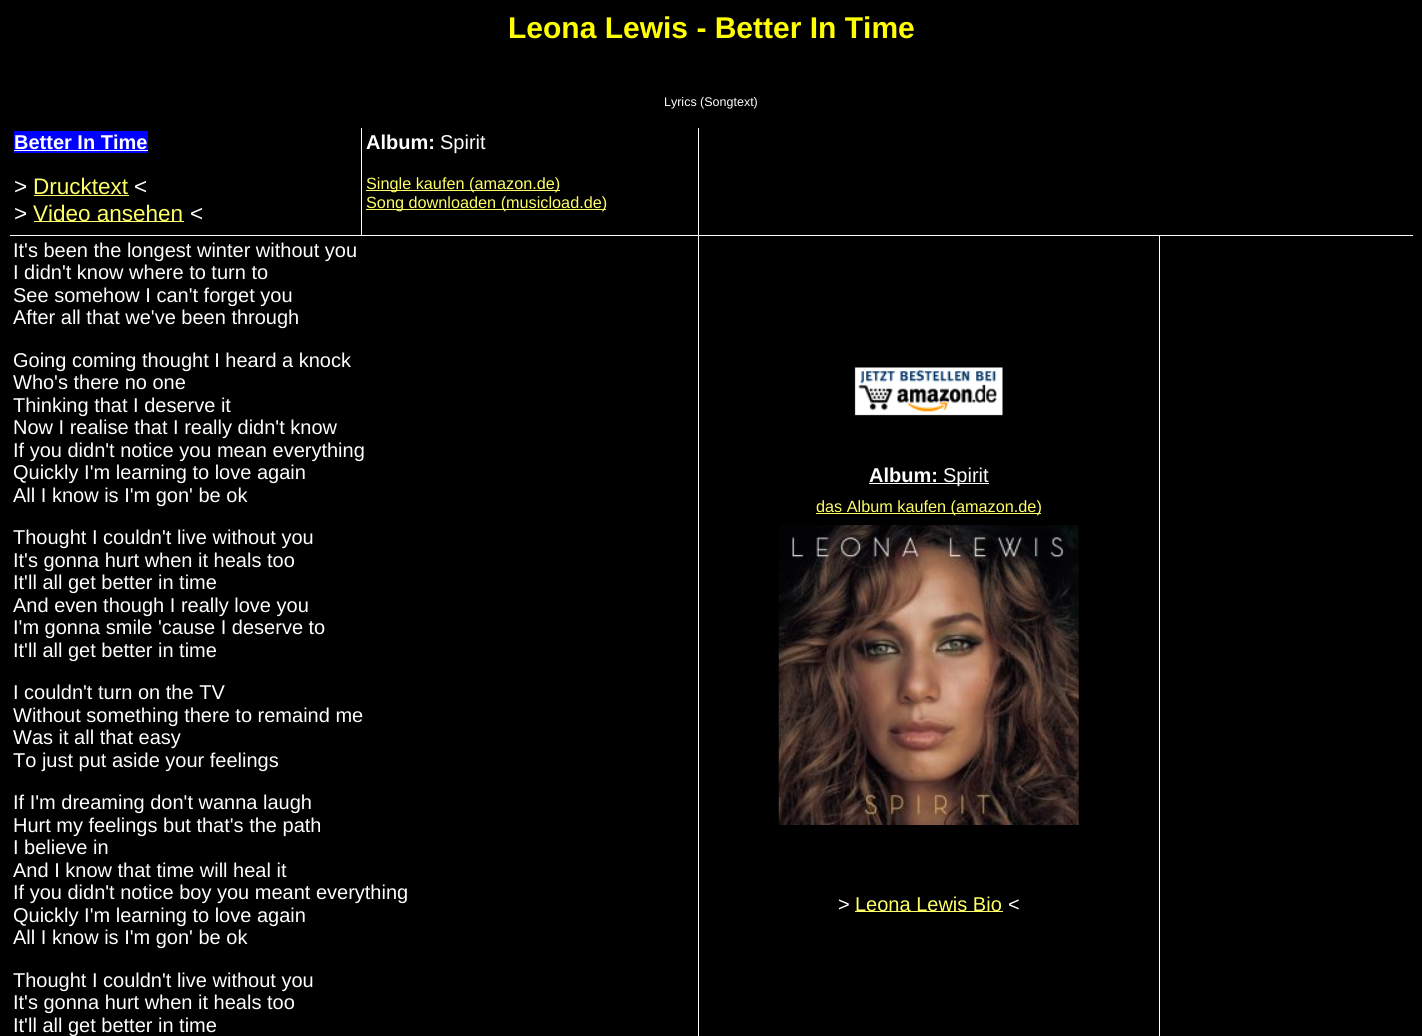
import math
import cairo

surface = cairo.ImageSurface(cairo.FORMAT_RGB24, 1422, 1036)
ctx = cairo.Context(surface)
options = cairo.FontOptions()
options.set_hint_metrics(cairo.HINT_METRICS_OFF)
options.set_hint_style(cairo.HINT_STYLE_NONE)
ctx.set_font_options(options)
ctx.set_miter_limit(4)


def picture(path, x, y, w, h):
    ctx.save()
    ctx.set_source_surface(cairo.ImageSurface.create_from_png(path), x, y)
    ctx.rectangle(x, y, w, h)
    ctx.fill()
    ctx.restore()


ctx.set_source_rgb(0, 0, 0)
ctx.paint()
ctx.select_font_face("Liberation Sans", cairo.FONT_SLANT_NORMAL, cairo.FONT_WEIGHT_BOLD)
ctx.set_font_size(30)
ctx.set_source_rgb(1, 1, 0)
ctx.move_to(508, 38)
ctx.show_text("Leona Lewis - Better In Time")
ctx.select_font_face("Liberation Sans")
ctx.set_font_size(12.5)
ctx.set_source_rgb(1, 1, 1)
ctx.move_to(664, 106)
ctx.show_text("Lyrics (Songtext)")
ctx.set_source_rgb(0, 0, 1)
ctx.rectangle(14, 131, 134, 22)
ctx.fill()
ctx.select_font_face("Liberation Sans", cairo.FONT_SLANT_NORMAL, cairo.FONT_WEIGHT_BOLD)
ctx.set_font_size(20)
ctx.set_source_rgb(1, 1, 1)
ctx.move_to(14, 149)
ctx.show_text("Better In Time")
ctx.rectangle(14, 150, 134, 1)
ctx.fill()
ctx.select_font_face("Liberation Sans")
ctx.set_font_size(22.5)
ctx.move_to(14, 194)
ctx.show_text(">")
ctx.set_source_rgb(1, 1, 0.4)
ctx.move_to(33, 194)
ctx.show_text("Drucktext")
ctx.rectangle(34, 195, 95, 1)
ctx.fill()
ctx.set_source_rgb(1, 1, 1)
ctx.move_to(134, 194)
ctx.show_text("<")
ctx.move_to(14, 221)
ctx.show_text(">")
ctx.set_source_rgb(1, 1, 0.4)
ctx.rectangle(34, 221, 150, 1)
ctx.fill()
ctx.move_to(33, 221)
ctx.show_text("Video ansehen")
ctx.set_source_rgb(1, 1, 1)
ctx.move_to(190, 221)
ctx.show_text("<")
ctx.rectangle(361, 128, 1, 107)
ctx.fill()
ctx.select_font_face("Liberation Sans", cairo.FONT_SLANT_NORMAL, cairo.FONT_WEIGHT_BOLD)
ctx.set_font_size(20)
ctx.move_to(366, 149)
ctx.show_text("Album:")
ctx.select_font_face("Liberation Sans")
ctx.move_to(440, 149)
ctx.show_text("Spirit")
ctx.set_source_rgb(1, 1, 0.4)
ctx.rectangle(366, 190, 194, 1)
ctx.fill()
ctx.set_font_size(16.25)
ctx.move_to(366, 189)
ctx.show_text("Single kaufen (amazon.de)")
ctx.rectangle(366, 209, 240, 1)
ctx.fill()
ctx.move_to(366, 208)
ctx.show_text("Song downloaden (musicload.de)")
ctx.set_source_rgb(1, 1, 1)
ctx.rectangle(698, 128, 1, 107)
ctx.fill()
ctx.rectangle(10, 235, 1403, 1)
ctx.fill()
ctx.set_font_size(20)
ctx.move_to(13, 257)
ctx.show_text("It's been the longest winter without you")
ctx.move_to(13, 279)
ctx.show_text("I didn't know where to turn to")
ctx.move_to(13, 302)
ctx.show_text("See somehow I can't forget you")
ctx.move_to(13, 324)
ctx.show_text("After all that we've been through")
ctx.move_to(13, 367)
ctx.show_text("Going coming thought I heard a knock")
ctx.move_to(13, 389)
ctx.show_text("Who's there no one")
ctx.move_to(13, 412)
ctx.show_text("Thinking that I deserve it")
ctx.move_to(13, 434)
ctx.show_text("Now I realise that I really didn't know")
ctx.move_to(13, 457)
ctx.show_text("If you didn't notice you mean everything")
ctx.move_to(13, 479)
ctx.show_text("Quickly I'm learning to love again")
ctx.move_to(13, 502)
ctx.show_text("All I know is I'm gon' be ok")
ctx.move_to(13, 544)
ctx.show_text("Thought I couldn't live without you")
ctx.move_to(13, 567)
ctx.show_text("It's gonna hurt when it heals too")
ctx.move_to(13, 589)
ctx.show_text("It'll all get better in time")
ctx.move_to(13, 612)
ctx.show_text("And even though I really love you")
ctx.move_to(13, 634)
ctx.show_text("I'm gonna smile 'cause I deserve to")
ctx.move_to(13, 657)
ctx.show_text("It'll all get better in time")
ctx.move_to(13, 699)
ctx.show_text("I couldn't turn on the TV")
ctx.move_to(13, 722)
ctx.show_text("Without something there to remaind me")
ctx.move_to(13, 744)
ctx.show_text("Was it all that easy")
ctx.move_to(13, 767)
ctx.show_text("To just put aside your feelings")
ctx.move_to(13, 809)
ctx.show_text("If I'm dreaming don't wanna laugh")
ctx.move_to(13, 832)
ctx.show_text("Hurt my feelings but that's the path")
ctx.move_to(13, 854)
ctx.show_text("I believe in")
ctx.move_to(13, 877)
ctx.show_text("And I know that time will heal it")
ctx.move_to(13, 899)
ctx.show_text("If you didn't notice boy you meant everything")
ctx.move_to(13, 922)
ctx.show_text("Quickly I'm learning to love again")
ctx.move_to(13, 944)
ctx.show_text("All I know is I'm gon' be ok")
ctx.move_to(13, 987)
ctx.show_text("Thought I couldn't live without you")
ctx.move_to(13, 1009)
ctx.show_text("It's gonna hurt when it heals too")
ctx.move_to(13, 1032)
ctx.show_text("It'll all get better in time")
ctx.rectangle(1159, 235, 1, 801)
ctx.fill()
ctx.rectangle(698, 235, 1, 801)
ctx.fill()
picture("img1.png", 854, 367, 149, 49)
ctx.select_font_face("Liberation Sans", cairo.FONT_SLANT_NORMAL, cairo.FONT_WEIGHT_BOLD)
ctx.move_to(869, 482)
ctx.show_text("Album:")
ctx.rectangle(869, 483, 120, 1)
ctx.fill()
ctx.select_font_face("Liberation Sans")
ctx.move_to(943, 482)
ctx.show_text("Spirit")
ctx.set_source_rgb(1, 1, 0.4)
ctx.rectangle(816, 513, 225, 1)
ctx.fill()
ctx.set_font_size(16.25)
ctx.move_to(816, 512)
ctx.show_text("das Album kaufen (amazon.de)")
picture("img2.png", 778, 525, 301, 300)
ctx.set_font_size(20)
ctx.set_source_rgb(1, 1, 1)
ctx.move_to(838, 911)
ctx.show_text(">")
ctx.set_source_rgb(1, 1, 0.4)
ctx.rectangle(855, 911, 148, 1)
ctx.fill()
ctx.move_to(855, 911)
ctx.show_text("Leona Lewis Bio")
ctx.set_source_rgb(1, 1, 1)
ctx.move_to(1008, 911)
ctx.show_text("<")
surface.write_to_png("page.png")
